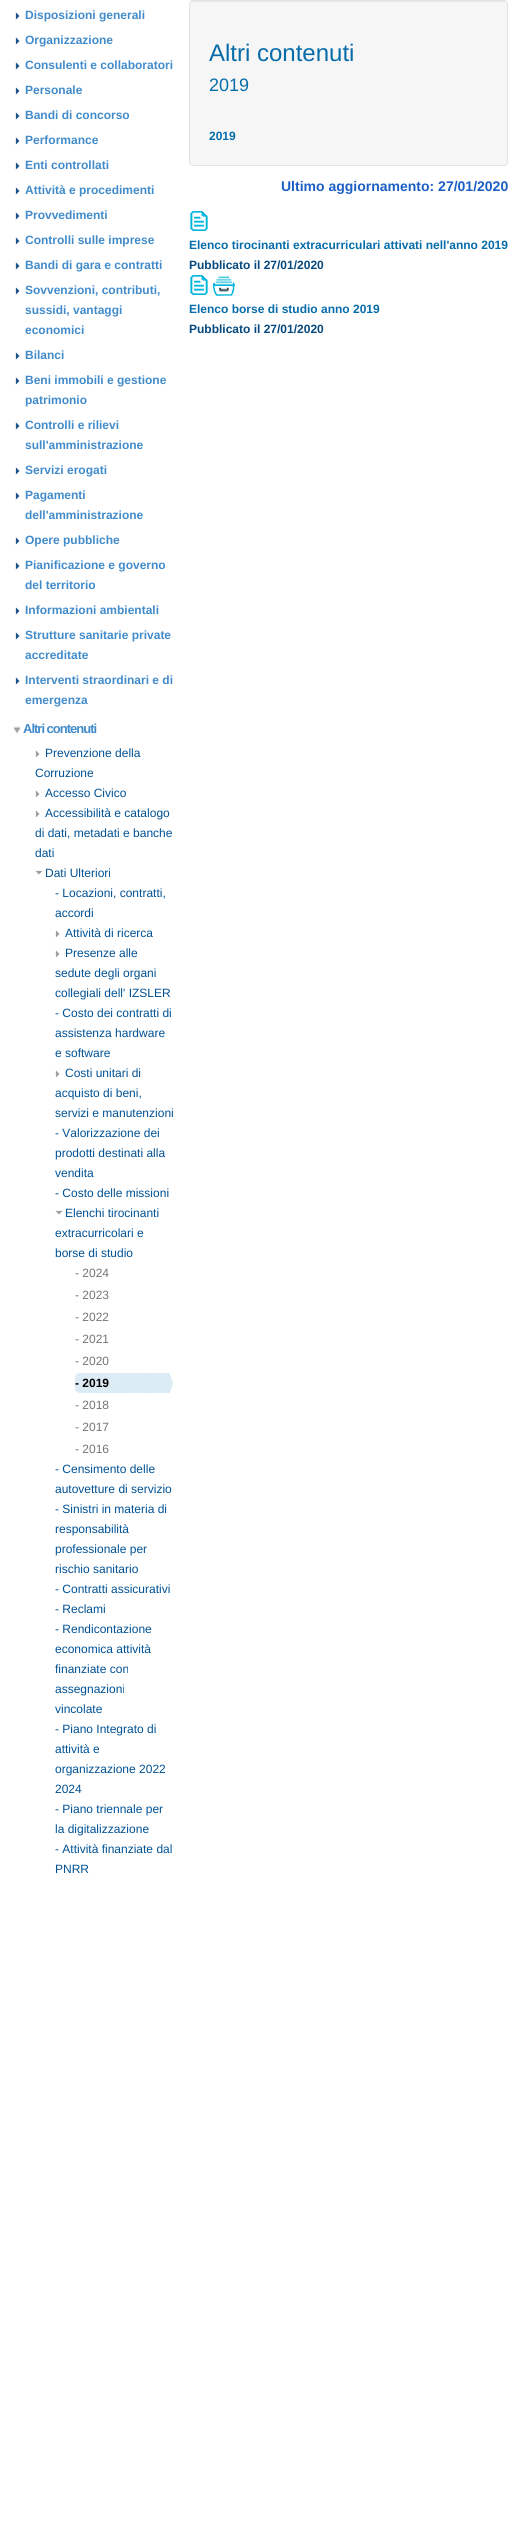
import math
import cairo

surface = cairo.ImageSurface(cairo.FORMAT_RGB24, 523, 2539)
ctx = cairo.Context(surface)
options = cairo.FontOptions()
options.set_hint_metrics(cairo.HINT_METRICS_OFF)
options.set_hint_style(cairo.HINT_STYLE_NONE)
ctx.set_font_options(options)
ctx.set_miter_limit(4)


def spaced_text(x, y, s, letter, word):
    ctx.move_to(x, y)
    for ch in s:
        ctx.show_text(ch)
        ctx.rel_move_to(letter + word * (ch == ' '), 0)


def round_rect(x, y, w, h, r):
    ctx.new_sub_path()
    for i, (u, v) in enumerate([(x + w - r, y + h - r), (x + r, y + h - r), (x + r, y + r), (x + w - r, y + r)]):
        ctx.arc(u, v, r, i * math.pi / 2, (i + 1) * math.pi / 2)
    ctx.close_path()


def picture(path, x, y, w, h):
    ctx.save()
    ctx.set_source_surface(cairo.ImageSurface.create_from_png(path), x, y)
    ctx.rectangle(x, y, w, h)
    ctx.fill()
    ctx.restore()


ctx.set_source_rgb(1, 1, 1)
ctx.paint()
picture("img1.png", 15, 12, 5, 8)
ctx.select_font_face("Liberation Sans", cairo.FONT_SLANT_NORMAL, cairo.FONT_WEIGHT_BOLD)
ctx.set_font_size(12)
ctx.set_source_rgb(0.259, 0.545, 0.792)
ctx.move_to(25, 19)
ctx.show_text("Disposizioni generali")
picture("img1.png", 15, 37, 5, 8)
ctx.move_to(25, 44)
ctx.show_text("Organizzazione")
picture("img1.png", 15, 62, 5, 8)
ctx.move_to(25, 69)
ctx.show_text("Consulenti e collaboratori")
picture("img1.png", 15, 87, 5, 8)
ctx.move_to(25, 94)
ctx.show_text("Personale")
picture("img1.png", 15, 112, 5, 8)
ctx.move_to(25, 119)
ctx.show_text("Bandi di concorso")
picture("img1.png", 15, 137, 5, 8)
ctx.move_to(25, 144)
ctx.show_text("Performance")
picture("img1.png", 15, 162, 5, 8)
ctx.move_to(25, 169)
ctx.show_text("Enti controllati")
picture("img1.png", 15, 187, 5, 8)
ctx.move_to(25, 194)
ctx.show_text("Attività e procedimenti")
picture("img1.png", 15, 212, 5, 8)
ctx.move_to(25, 219)
ctx.show_text("Provvedimenti")
picture("img1.png", 15, 237, 5, 8)
ctx.move_to(25, 244)
ctx.show_text("Controlli sulle imprese")
picture("img1.png", 15, 262, 5, 8)
ctx.move_to(25, 269)
ctx.show_text("Bandi di gara e contratti")
picture("img1.png", 15, 287, 5, 8)
ctx.move_to(25, 294)
ctx.show_text("Sovvenzioni, contributi,")
ctx.move_to(25, 314)
ctx.show_text("sussidi, vantaggi")
ctx.move_to(25, 334)
ctx.show_text("economici")
picture("img1.png", 15, 352, 5, 8)
ctx.move_to(25, 359)
ctx.show_text("Bilanci")
picture("img1.png", 15, 377, 5, 8)
ctx.move_to(25, 384)
ctx.show_text("Beni immobili e gestione")
ctx.move_to(25, 404)
ctx.show_text("patrimonio")
picture("img1.png", 15, 422, 5, 8)
ctx.move_to(25, 429)
ctx.show_text("Controlli e rilievi")
ctx.move_to(25, 449)
ctx.show_text("sull'amministrazione")
picture("img1.png", 15, 467, 5, 8)
ctx.move_to(25, 474)
ctx.show_text("Servizi erogati")
picture("img1.png", 15, 492, 5, 8)
ctx.move_to(25, 499)
ctx.show_text("Pagamenti")
ctx.move_to(25, 519)
ctx.show_text("dell'amministrazione")
picture("img1.png", 15, 537, 5, 8)
ctx.move_to(25, 544)
ctx.show_text("Opere pubbliche")
picture("img1.png", 15, 562, 5, 8)
ctx.move_to(25, 569)
ctx.show_text("Pianificazione e governo")
ctx.move_to(25, 589)
ctx.show_text("del territorio")
picture("img1.png", 15, 607, 5, 8)
ctx.move_to(25, 614)
ctx.show_text("Informazioni ambientali")
picture("img1.png", 15, 632, 5, 8)
ctx.move_to(25, 639)
ctx.show_text("Strutture sanitarie private")
ctx.move_to(25, 659)
ctx.show_text("accreditate")
picture("img1.png", 15, 677, 5, 8)
ctx.move_to(25, 684)
ctx.show_text("Interventi straordinari e di")
ctx.move_to(25, 704)
ctx.show_text("emergenza")
picture("img2.png", 13, 726, 8, 8)
ctx.set_font_size(13)
spaced_text(23, 733, "Altri contenuti", -1, 0)
picture("img3.png", 35, 750, 5, 7)
ctx.select_font_face("Liberation Sans")
ctx.set_font_size(12)
ctx.set_source_rgb(0, 0.318, 0.58)
ctx.move_to(45, 757)
ctx.show_text("Prevenzione della")
ctx.move_to(35, 777)
ctx.show_text("Corruzione")
picture("img3.png", 35, 790, 5, 7)
ctx.move_to(45, 797)
ctx.show_text("Accesso Civico")
picture("img3.png", 35, 810, 5, 7)
ctx.move_to(45, 817)
ctx.show_text("Accessibilità e catalogo")
ctx.move_to(35, 837)
ctx.show_text("di dati, metadati e banche")
ctx.move_to(35, 857)
ctx.show_text("dati")
picture("img4.png", 35, 870, 8, 5)
ctx.move_to(45, 877)
ctx.show_text("Dati Ulteriori")
ctx.move_to(55, 897)
ctx.show_text("- Locazioni, contratti,")
ctx.move_to(55, 917)
ctx.show_text("accordi")
picture("img3.png", 55, 930, 5, 7)
ctx.move_to(65, 937)
ctx.show_text("Attività di ricerca")
picture("img3.png", 55, 950, 5, 7)
ctx.move_to(65, 957)
ctx.show_text("Presenze alle")
ctx.move_to(55, 977)
ctx.show_text("sedute degli organi")
ctx.move_to(55, 997)
ctx.show_text("collegiali dell' IZSLER")
ctx.move_to(55, 1017)
ctx.show_text("- Costo dei contratti di")
ctx.move_to(55, 1037)
ctx.show_text("assistenza hardware")
ctx.move_to(55, 1057)
ctx.show_text("e software")
picture("img3.png", 55, 1070, 5, 7)
ctx.move_to(65, 1077)
ctx.show_text("Costi unitari di")
ctx.move_to(55, 1097)
ctx.show_text("acquisto di beni,")
ctx.move_to(55, 1117)
ctx.show_text("servizi e manutenzioni")
ctx.move_to(55, 1137)
ctx.show_text("- Valorizzazione dei")
ctx.move_to(55, 1157)
ctx.show_text("prodotti destinati alla")
ctx.move_to(55, 1177)
ctx.show_text("vendita")
ctx.move_to(55, 1197)
ctx.show_text("- Costo delle missioni")
picture("img4.png", 55, 1210, 8, 5)
ctx.move_to(65, 1217)
ctx.show_text("Elenchi tirocinanti")
ctx.move_to(55, 1237)
ctx.show_text("extracurricolari e")
ctx.move_to(55, 1257)
ctx.show_text("borse di studio")
ctx.set_source_rgb(0.455, 0.455, 0.455)
ctx.move_to(75, 1277)
ctx.show_text("- 2024")
ctx.move_to(75, 1299)
ctx.show_text("- 2023")
ctx.move_to(75, 1321)
ctx.show_text("- 2022")
ctx.move_to(75, 1343)
ctx.show_text("- 2021")
ctx.move_to(75, 1365)
ctx.show_text("- 2020")
picture("img5.png", 75, 1373, 98, 20)
ctx.select_font_face("Liberation Sans", cairo.FONT_SLANT_NORMAL, cairo.FONT_WEIGHT_BOLD)
ctx.set_source_rgb(0, 0, 0)
ctx.move_to(75, 1387)
ctx.show_text("- 2019")
ctx.select_font_face("Liberation Sans")
ctx.set_source_rgb(0.455, 0.455, 0.455)
ctx.move_to(75, 1409)
ctx.show_text("- 2018")
ctx.move_to(75, 1431)
ctx.show_text("- 2017")
ctx.move_to(75, 1453)
ctx.show_text("- 2016")
ctx.set_source_rgb(0, 0.318, 0.58)
ctx.move_to(55, 1473)
ctx.show_text("- Censimento delle")
ctx.move_to(55, 1493)
ctx.show_text("autovetture di servizio")
ctx.move_to(55, 1513)
ctx.show_text("- Sinistri in materia di")
ctx.move_to(55, 1533)
ctx.show_text("responsabilità")
ctx.move_to(55, 1553)
ctx.show_text("professionale per")
ctx.move_to(55, 1573)
ctx.show_text("rischio sanitario")
ctx.move_to(55, 1593)
ctx.show_text("- Contratti assicurativi")
ctx.move_to(55, 1613)
ctx.show_text("- Reclami")
ctx.move_to(55, 1633)
ctx.show_text("- Rendicontazione")
ctx.move_to(55, 1653)
ctx.show_text("economica attività")
ctx.move_to(55, 1673)
ctx.show_text("finanziate con")
ctx.move_to(55, 1693)
ctx.show_text("assegnazioni")
ctx.move_to(55, 1713)
ctx.show_text("vincolate")
ctx.move_to(55, 1733)
ctx.show_text("- Piano Integrato di")
ctx.move_to(55, 1753)
ctx.show_text("attività e")
ctx.move_to(55, 1773)
ctx.show_text("organizzazione 2022")
ctx.move_to(55, 1793)
ctx.show_text("2024")
ctx.move_to(55, 1813)
ctx.show_text("- Piano triennale per")
ctx.move_to(55, 1833)
ctx.show_text("la digitalizzazione")
ctx.move_to(55, 1853)
ctx.show_text("- Attività finanziate dal")
ctx.move_to(55, 1873)
ctx.show_text("PNRR")
ctx.set_source_rgb(0.961, 0.961, 0.961)
round_rect(189, 0, 319, 166, 4)
ctx.fill()
ctx.set_source_rgb(0.914, 0.914, 0.914)
ctx.new_path()
ctx.move_to(193, 2)
ctx.line_to(504, 2)
ctx.curve_to(506, 2, 507, 3, 507, 5)
ctx.line_to(506, 2)
ctx.line_to(505, 1)
ctx.line_to(193, 1)
ctx.curve_to(191, 1, 190, 3, 190, 5)
ctx.curve_to(190, 3, 191, 2, 193, 2)
ctx.close_path()
ctx.fill()
round_rect(189.5, 0.5, 318, 165, 3.5)
ctx.set_source_rgb(0.89, 0.89, 0.89)
ctx.set_line_width(1)
ctx.stroke()
ctx.set_font_size(24)
ctx.set_source_rgb(0.024, 0.424, 0.667)
ctx.move_to(209, 61)
ctx.show_text("Altri contenuti")
ctx.set_font_size(18)
ctx.move_to(209, 91)
ctx.show_text("2019")
ctx.select_font_face("Liberation Sans", cairo.FONT_SLANT_NORMAL, cairo.FONT_WEIGHT_BOLD)
ctx.set_font_size(12)
ctx.move_to(209, 140)
ctx.show_text("2019")
ctx.set_font_size(14)
ctx.set_source_rgb(0.106, 0.373, 0.773)
ctx.move_to(281, 191)
ctx.show_text("Ultimo aggiornamento: 27/01/2020")
picture("img6.png", 190, 211, 18, 20)
ctx.set_font_size(12)
ctx.set_source_rgb(0.024, 0.424, 0.667)
ctx.move_to(189, 249)
ctx.show_text("Elenco tirocinanti extracurriculari attivati nell'anno 2019")
ctx.set_source_rgb(0.024, 0.282, 0.49)
ctx.move_to(189, 269)
ctx.show_text("Pubblicato il 27/01/2020")
picture("img6.png", 190, 275, 18, 20)
picture("img7.png", 213, 276, 22, 20)
ctx.set_source_rgb(0.024, 0.424, 0.667)
ctx.move_to(189, 313)
ctx.show_text("Elenco borse di studio anno 2019")
ctx.set_source_rgb(0.024, 0.282, 0.49)
ctx.move_to(189, 333)
ctx.show_text("Pubblicato il 27/01/2020")
surface.write_to_png("page.png")
